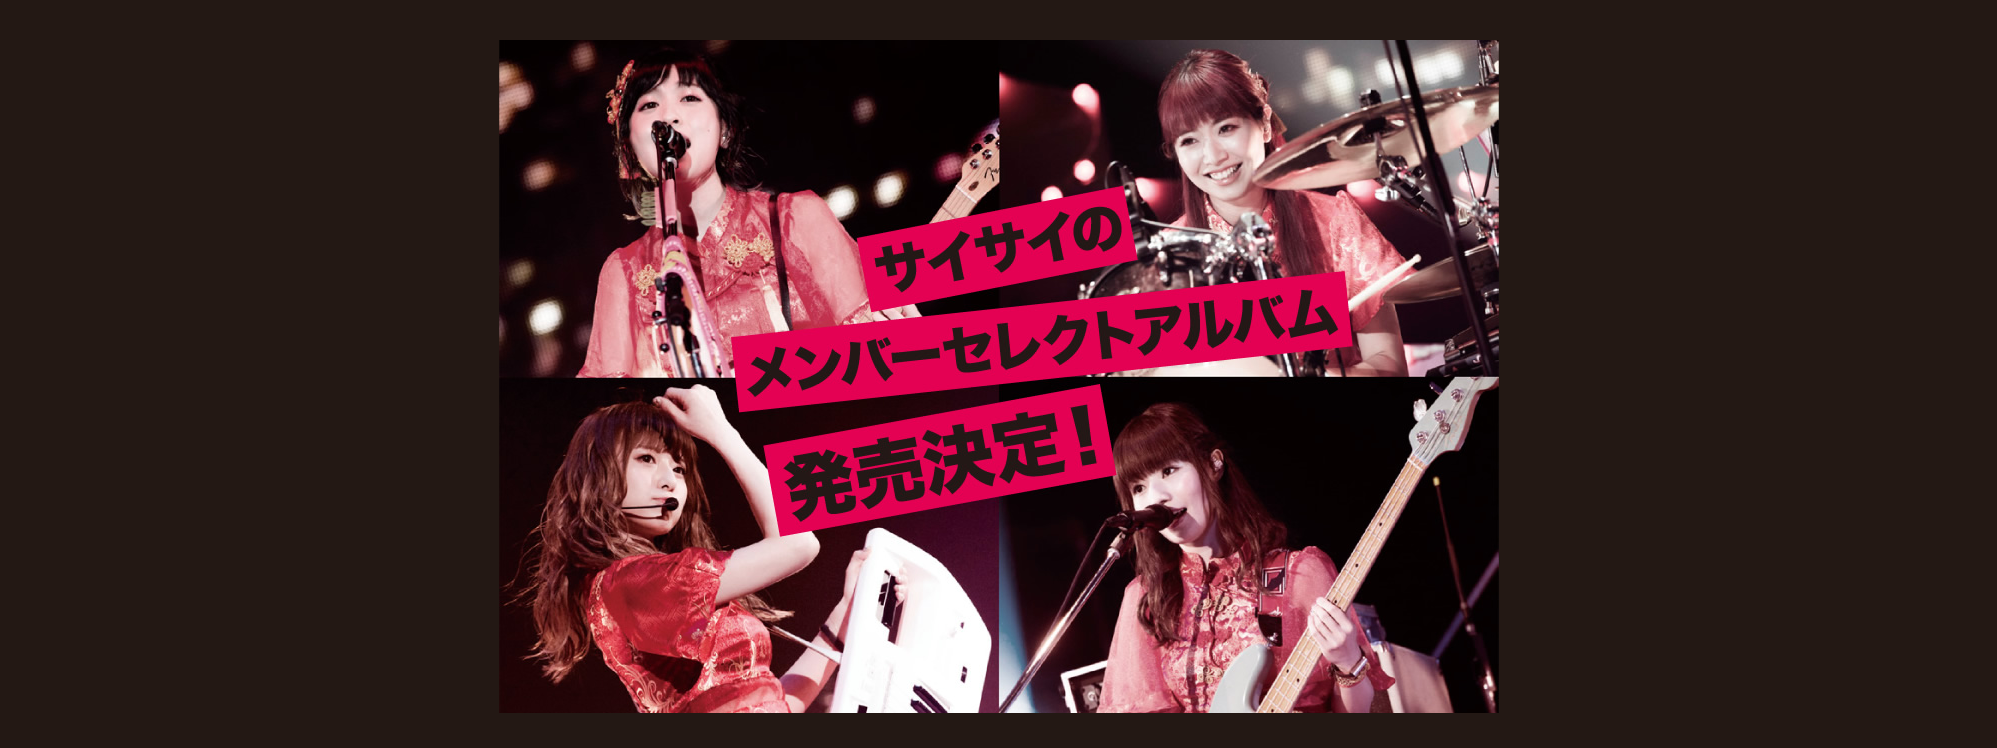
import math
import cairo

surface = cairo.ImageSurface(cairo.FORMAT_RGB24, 1997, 748)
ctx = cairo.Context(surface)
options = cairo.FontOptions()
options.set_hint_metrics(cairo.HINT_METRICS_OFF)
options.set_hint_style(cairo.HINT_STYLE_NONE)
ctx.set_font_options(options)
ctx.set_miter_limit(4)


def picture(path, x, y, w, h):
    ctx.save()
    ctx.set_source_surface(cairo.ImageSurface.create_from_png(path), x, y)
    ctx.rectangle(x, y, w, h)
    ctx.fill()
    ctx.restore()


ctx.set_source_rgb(0.137, 0.094, 0.082)
ctx.paint()
picture("img1.png", 499, 40, 1000, 673)
surface.write_to_png("page.png")
